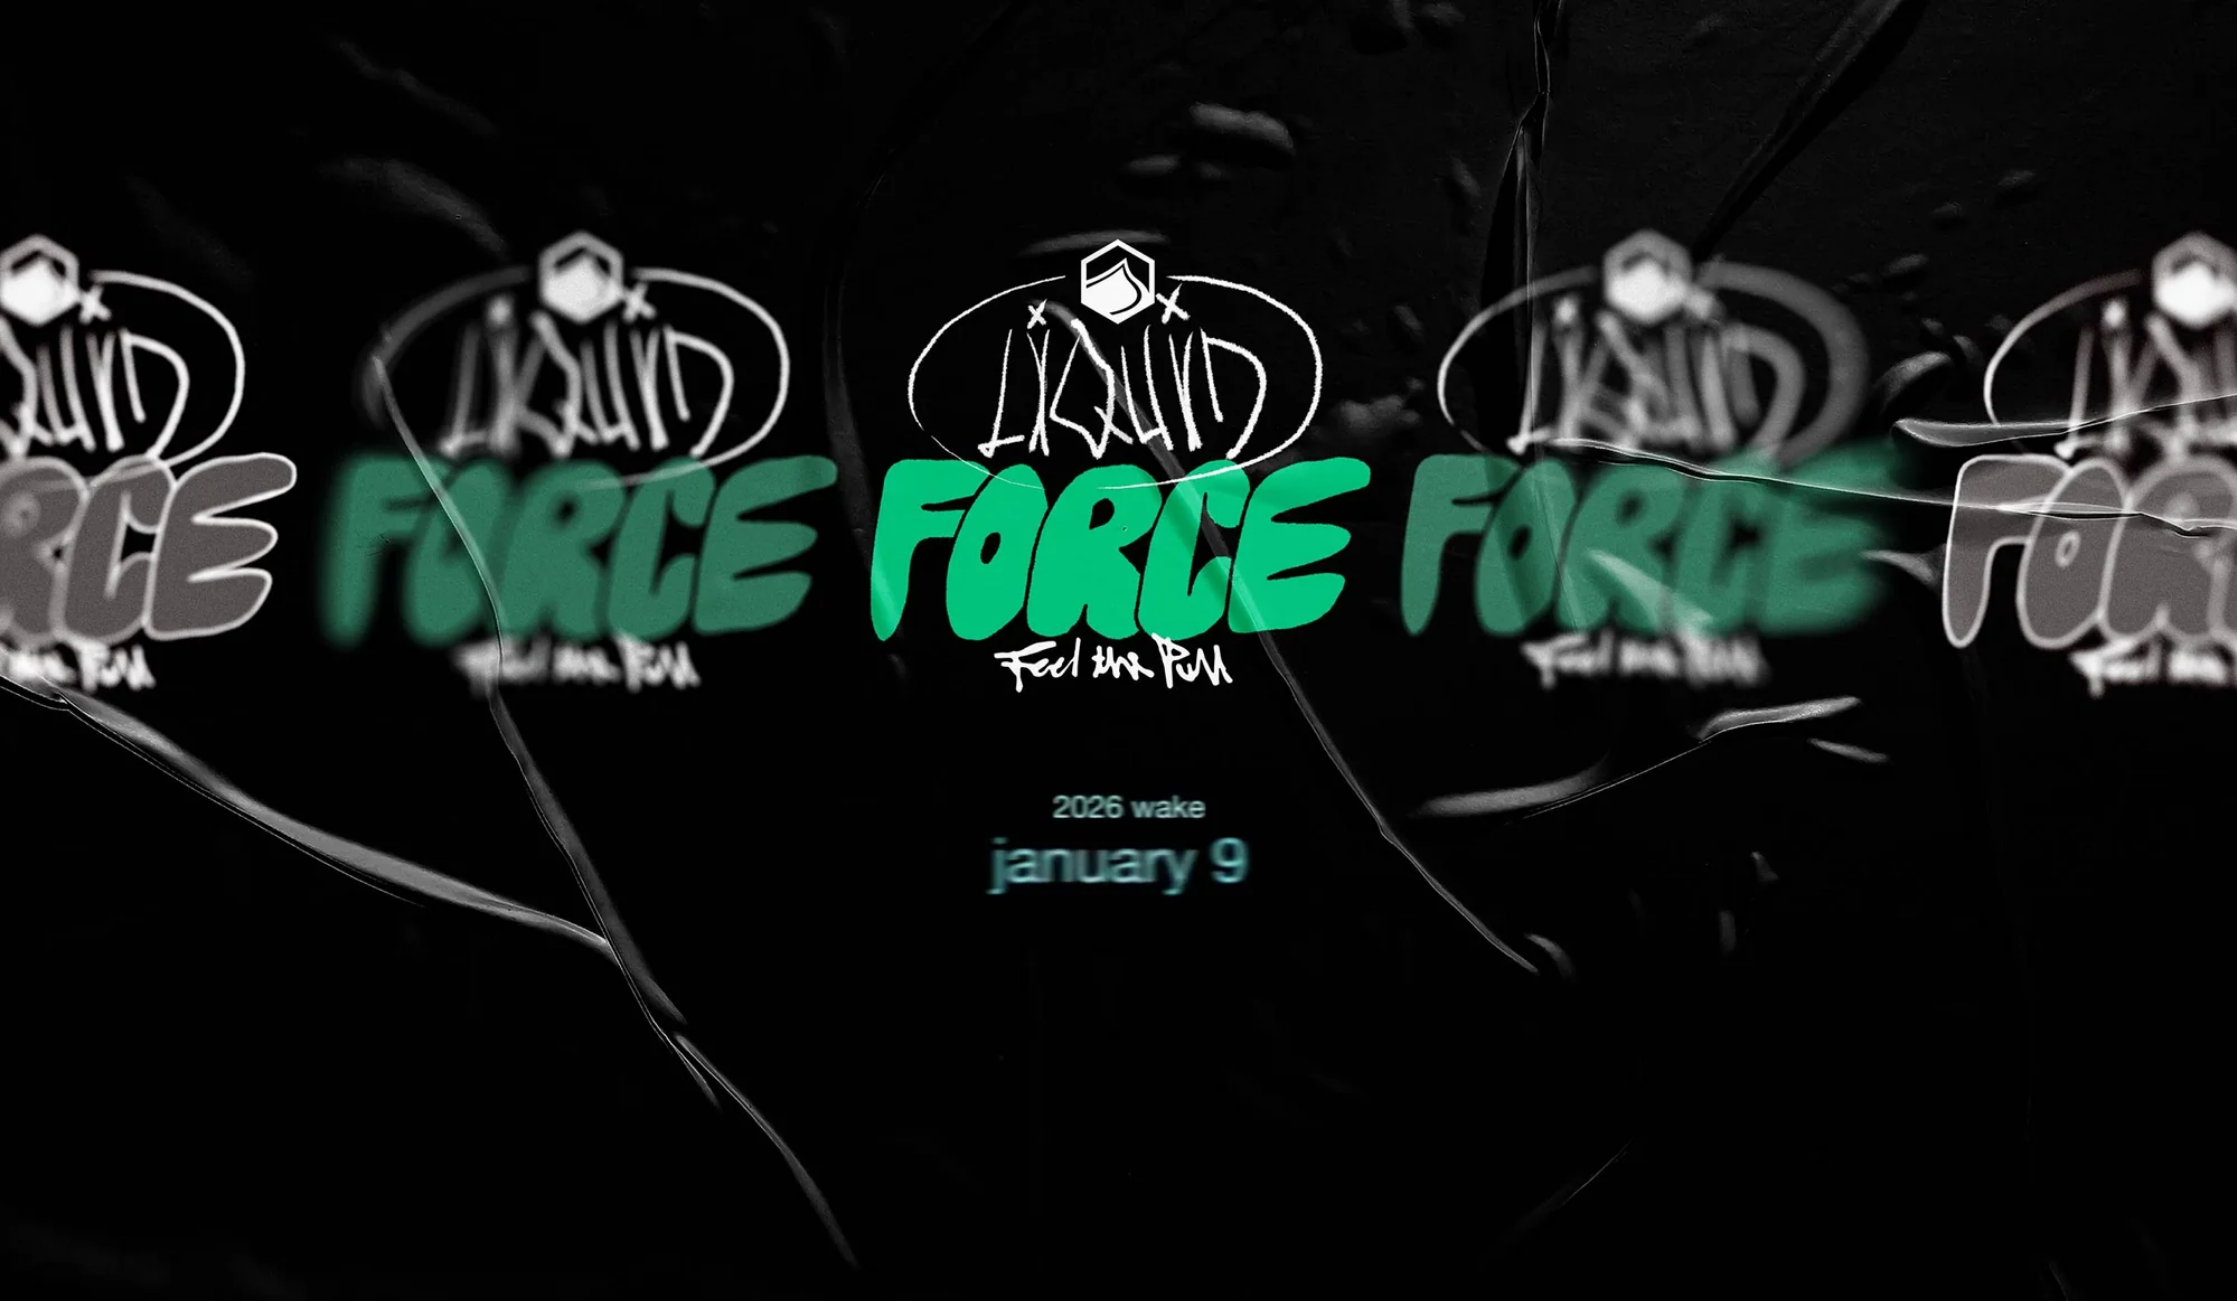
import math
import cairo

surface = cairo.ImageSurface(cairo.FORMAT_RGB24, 2237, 1301)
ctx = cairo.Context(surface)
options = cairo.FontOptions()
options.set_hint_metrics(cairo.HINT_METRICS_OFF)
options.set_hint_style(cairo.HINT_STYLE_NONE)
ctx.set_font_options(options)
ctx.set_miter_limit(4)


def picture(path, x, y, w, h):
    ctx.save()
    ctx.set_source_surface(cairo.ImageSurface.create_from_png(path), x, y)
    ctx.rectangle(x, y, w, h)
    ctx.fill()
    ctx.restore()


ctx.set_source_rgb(1, 1, 1)
ctx.paint()
picture("img1.png", 0, 0, 2237, 1301)
picture("img2.png", 44, 17, 2171, 1111)
picture("img3.png", 1152, 259, 1, 419)
surface.write_to_png("page.png")
